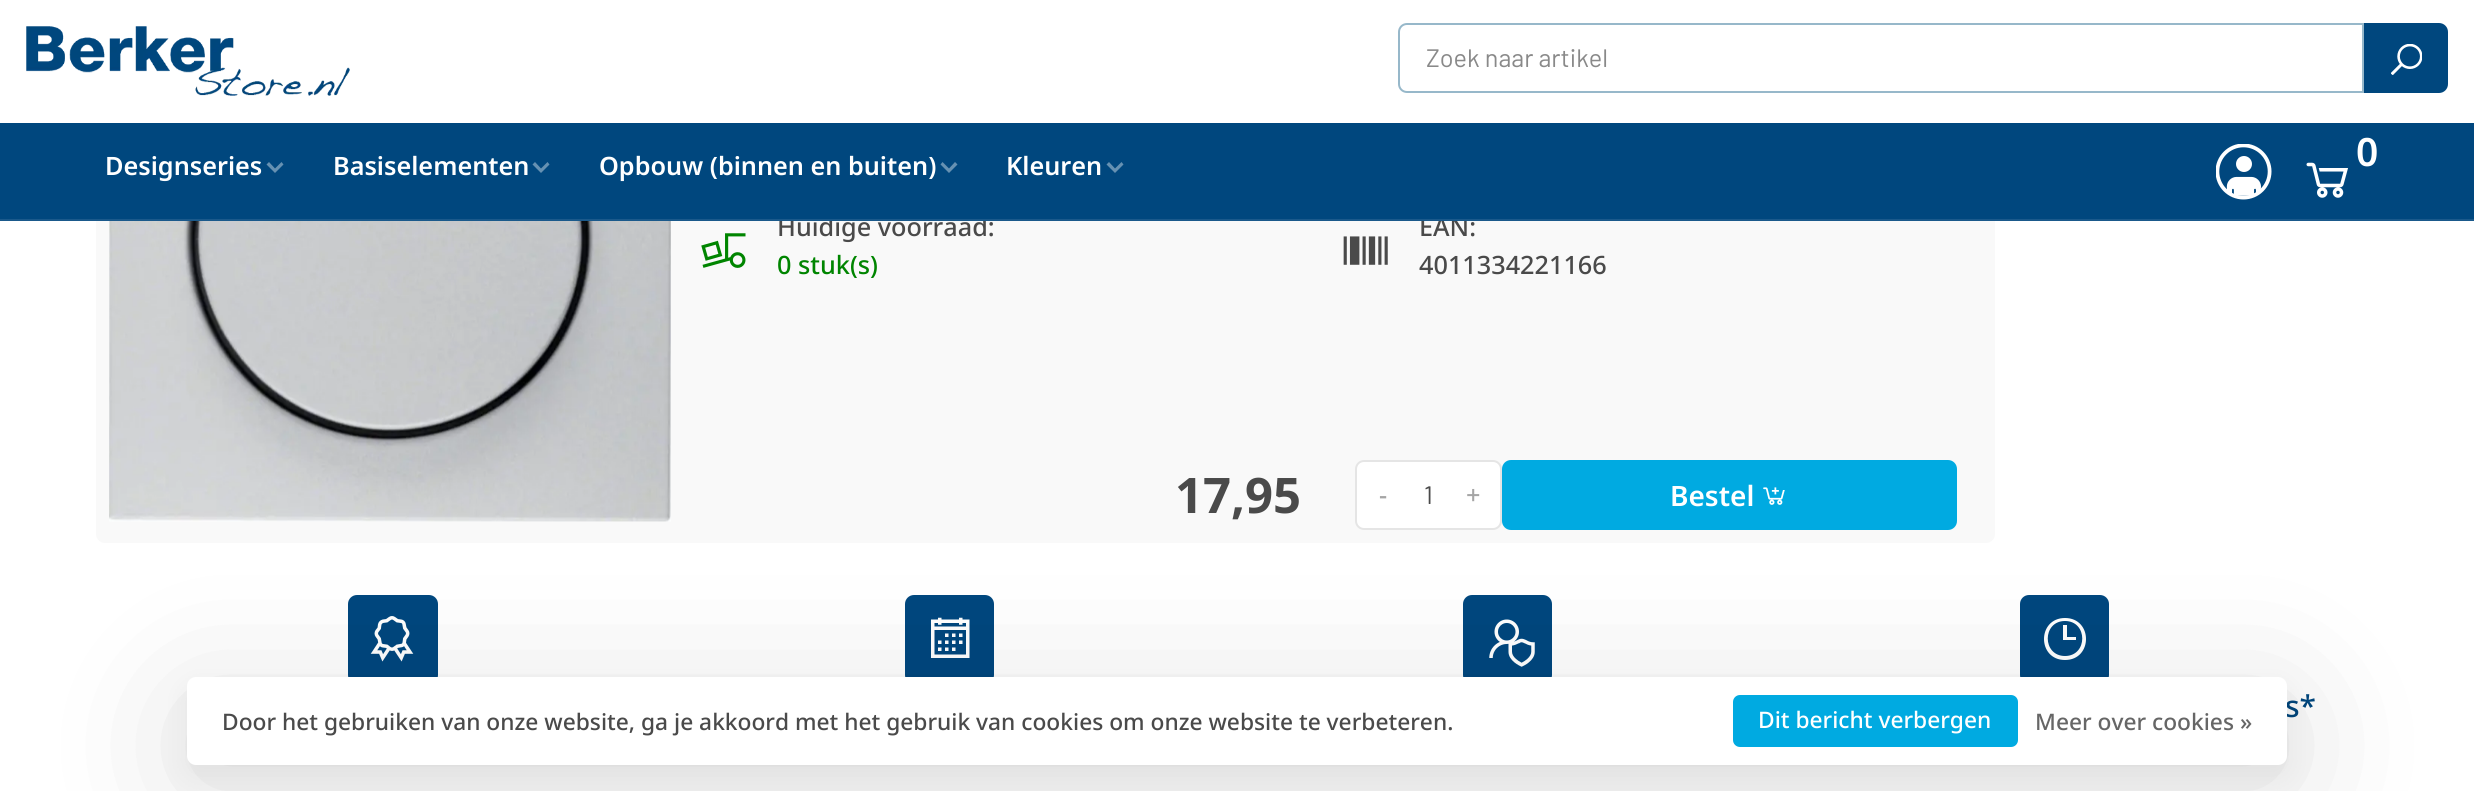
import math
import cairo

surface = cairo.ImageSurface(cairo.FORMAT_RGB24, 2474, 791)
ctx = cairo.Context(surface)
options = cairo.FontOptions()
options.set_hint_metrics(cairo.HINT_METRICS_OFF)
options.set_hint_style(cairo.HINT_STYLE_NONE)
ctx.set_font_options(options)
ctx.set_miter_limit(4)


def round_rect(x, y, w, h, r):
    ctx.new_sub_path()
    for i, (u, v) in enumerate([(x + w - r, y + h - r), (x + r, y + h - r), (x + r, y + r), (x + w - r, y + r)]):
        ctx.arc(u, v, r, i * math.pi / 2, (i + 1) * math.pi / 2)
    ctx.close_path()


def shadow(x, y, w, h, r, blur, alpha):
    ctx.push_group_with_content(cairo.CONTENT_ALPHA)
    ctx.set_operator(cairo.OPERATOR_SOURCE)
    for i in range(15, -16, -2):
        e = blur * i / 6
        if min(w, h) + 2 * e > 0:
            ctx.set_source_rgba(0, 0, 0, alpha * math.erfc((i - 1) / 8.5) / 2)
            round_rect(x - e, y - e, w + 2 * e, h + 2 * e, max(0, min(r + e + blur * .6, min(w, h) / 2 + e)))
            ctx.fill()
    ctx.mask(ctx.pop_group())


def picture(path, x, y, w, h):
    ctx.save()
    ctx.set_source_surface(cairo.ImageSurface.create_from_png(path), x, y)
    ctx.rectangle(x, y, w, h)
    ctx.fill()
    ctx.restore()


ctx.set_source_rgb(1, 1, 1)
ctx.paint()
ctx.set_source_rgb(0.976, 0.976, 0.976)
round_rect(96, -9, 1899, 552, 9)
ctx.fill()
ctx.set_source_rgb(1, 1, 1)
ctx.rectangle(96, 0, 1899, 123)
ctx.fill()
picture("img1.png", 26, 26, 324, 70)
ctx.new_path()
ctx.move_to(1407, 24)
ctx.line_to(2363, 24)
ctx.line_to(2363, 92)
ctx.line_to(1407, 92)
ctx.curve_to(1402.5, 92, 1399, 88.5, 1399, 84)
ctx.line_to(1399, 32)
ctx.curve_to(1399, 27.5, 1402.5, 24, 1407, 24)
ctx.close_path()
ctx.set_source_rgb(0.592, 0.722, 0.792)
ctx.stroke()
ctx.select_font_face("Barlow")
ctx.set_font_size(25.25)
ctx.set_source_rgb(0.537, 0.537, 0.537)
ctx.move_to(1426, 67)
ctx.show_text("Zoek naar artikel")
ctx.set_source_rgb(0, 0.278, 0.494)
ctx.new_path()
ctx.move_to(2364, 23)
ctx.line_to(2439, 23)
ctx.curve_to(2444, 23, 2448, 27, 2448, 32)
ctx.line_to(2448, 84)
ctx.curve_to(2448, 89, 2444, 93, 2439, 93)
ctx.line_to(2364, 93)
ctx.close_path()
ctx.fill()
picture("img2.png", 2391, 44, 31, 31)
ctx.select_font_face("Noto Sans Medium")
ctx.set_source_rgb(0.29, 0.29, 0.29)
ctx.move_to(777, 236)
ctx.show_text("Huidige voorraad:")
ctx.move_to(1419, 236)
ctx.show_text("EAN:")
ctx.set_source_rgb(0, 0.278, 0.494)
ctx.rectangle(0, 123, 2474, 96)
ctx.fill()
ctx.set_source_rgb(0.102, 0.349, 0.545)
ctx.rectangle(0, 219, 2474, 2)
ctx.fill()
ctx.select_font_face("Noto Sans SemiBold")
ctx.set_source_rgb(1, 1, 1)
ctx.move_to(105, 175)
ctx.show_text("Designseries")
ctx.set_source_rgb(0.4, 0.569, 0.698)
ctx.new_path()
ctx.move_to(275, 173)
ctx.line_to(266.5, 164.5)
ctx.line_to(269, 162)
ctx.line_to(275, 168.5)
ctx.line_to(281.5, 162)
ctx.line_to(283.5, 164.5)
ctx.close_path()
ctx.fill()
ctx.set_source_rgb(1, 1, 1)
ctx.move_to(333, 175)
ctx.show_text("Basiselementen")
ctx.set_source_rgb(0.4, 0.569, 0.698)
ctx.new_path()
ctx.move_to(541, 173)
ctx.line_to(532.5, 164.5)
ctx.line_to(535, 162)
ctx.line_to(541, 168.5)
ctx.line_to(547.5, 162)
ctx.line_to(549.5, 164.5)
ctx.close_path()
ctx.fill()
ctx.set_source_rgb(1, 1, 1)
ctx.move_to(599, 175)
ctx.show_text("Opbouw (binnen en buiten)")
ctx.set_source_rgb(0.4, 0.569, 0.698)
ctx.new_path()
ctx.move_to(949, 173)
ctx.line_to(940.5, 164.5)
ctx.line_to(942.5, 162)
ctx.line_to(949, 168.5)
ctx.line_to(955, 162)
ctx.line_to(957.5, 164.5)
ctx.close_path()
ctx.fill()
ctx.set_source_rgb(1, 1, 1)
ctx.move_to(1006, 175)
ctx.show_text("Kleuren")
ctx.set_source_rgb(0.4, 0.569, 0.698)
ctx.new_path()
ctx.move_to(1115, 173)
ctx.line_to(1106.5, 164.5)
ctx.line_to(1109, 162)
ctx.line_to(1115, 168.5)
ctx.line_to(1121.5, 162)
ctx.line_to(1123.5, 164.5)
ctx.close_path()
ctx.fill()
picture("img3.png", 2216, 144, 56, 56)
ctx.set_font_size(39)
ctx.set_source_rgb(1, 1, 1)
ctx.move_to(2356, 166)
ctx.show_text("0")
picture("img4.png", 2306, 162, 42, 36)
picture("img5.png", 109, 221, 562, 301)
picture("img6.png", 701, 233, 45, 35)
ctx.select_font_face("Noto Sans Medium")
ctx.set_font_size(25.25)
ctx.set_source_rgb(0, 0.522, 0)
ctx.move_to(777, 274)
ctx.show_text("0 stuk(s)")
picture("img7.png", 1343, 236, 45, 29)
ctx.set_source_rgb(0.29, 0.29, 0.29)
ctx.move_to(1419, 274)
ctx.show_text("4011334221166")
ctx.select_font_face("Noto Sans", cairo.FONT_SLANT_NORMAL, cairo.FONT_WEIGHT_BOLD)
ctx.set_font_size(49)
ctx.move_to(1175, 513)
ctx.show_text("17,95")
ctx.set_source_rgb(1, 1, 1)
round_rect(1356, 461, 145, 68, 8)
ctx.fill_preserve()
ctx.set_source_rgb(0.898, 0.898, 0.898)
ctx.stroke()
ctx.select_font_face("Barlow")
ctx.set_font_size(25.25)
ctx.set_source_rgb(0.29, 0.29, 0.29)
ctx.move_to(1424, 504)
ctx.show_text("1")
ctx.select_font_face("Noto Sans Medium")
ctx.set_source_rgb(0.647, 0.647, 0.647)
ctx.move_to(1379, 504)
ctx.show_text("-")
ctx.move_to(1466, 504)
ctx.show_text("+")
ctx.set_source_rgb(0, 0.667, 0.882)
round_rect(1502, 460, 455, 70, 9)
ctx.fill()
ctx.select_font_face("Noto Sans SemiBold")
ctx.set_font_size(28)
ctx.set_source_rgb(1, 1, 1)
ctx.move_to(1670, 506)
ctx.show_text("Bestel")
picture("img8.png", 1763, 487, 22, 18)
ctx.set_source_rgb(0, 0.278, 0.494)
round_rect(348, 595, 90, 89, 9)
ctx.fill()
picture("img9.png", 370, 616, 44, 46)
round_rect(905, 595, 89, 89, 9)
ctx.fill()
picture("img10.png", 931, 617, 39, 41)
round_rect(1463, 595, 89, 89, 9)
ctx.fill()
picture("img11.png", 1489, 619, 46, 48)
round_rect(2020, 595, 89, 89, 9)
ctx.fill()
ctx.set_source_rgb(1, 1, 1)
ctx.new_path()
ctx.move_to(2065, 618)
ctx.curve_to(2037, 618, 2037, 660, 2065, 660)
ctx.curve_to(2093, 660, 2093, 618, 2065, 618)
ctx.close_path()
ctx.move_to(2065, 621)
ctx.curve_to(2088, 621, 2088, 656, 2065, 656)
ctx.curve_to(2042, 656, 2042, 621, 2065, 621)
ctx.close_path()
ctx.move_to(2063, 625)
ctx.line_to(2063, 640)
ctx.line_to(2076, 640)
ctx.line_to(2076, 637)
ctx.line_to(2067, 637)
ctx.line_to(2067, 625)
ctx.close_path()
ctx.fill()
ctx.select_font_face("Noto Sans Medium")
ctx.set_font_size(30)
ctx.set_source_rgb(0, 0.278, 0.494)
ctx.move_to(2285, 717)
ctx.show_text("s*")
ctx.set_source_rgb(0, 0, 0)
shadow(187, 688, 2100, 87, 9, 13, 0.05)
shadow(198, 712, 2079, 67, 0, 75, 0.15)
ctx.set_source_rgb(1, 1, 1)
round_rect(187, 677, 2100, 88, 9)
ctx.fill()
ctx.set_font_size(22.75)
ctx.set_source_rgb(0.29, 0.29, 0.29)
ctx.move_to(222, 730)
ctx.show_text("Door het gebruiken van onze website, ga je akkoord met het gebruik van cookies om onze website te verbeteren.")
ctx.set_source_rgb(0, 0.667, 0.882)
round_rect(1733, 695, 285, 52, 7)
ctx.fill()
ctx.set_source_rgb(1, 1, 1)
ctx.move_to(1758, 728)
ctx.show_text("Dit bericht verbergen")
ctx.set_source_rgb(0.4, 0.4, 0.4)
ctx.move_to(2035, 730)
ctx.show_text("Meer over cookies »")
surface.write_to_png("page.png")
